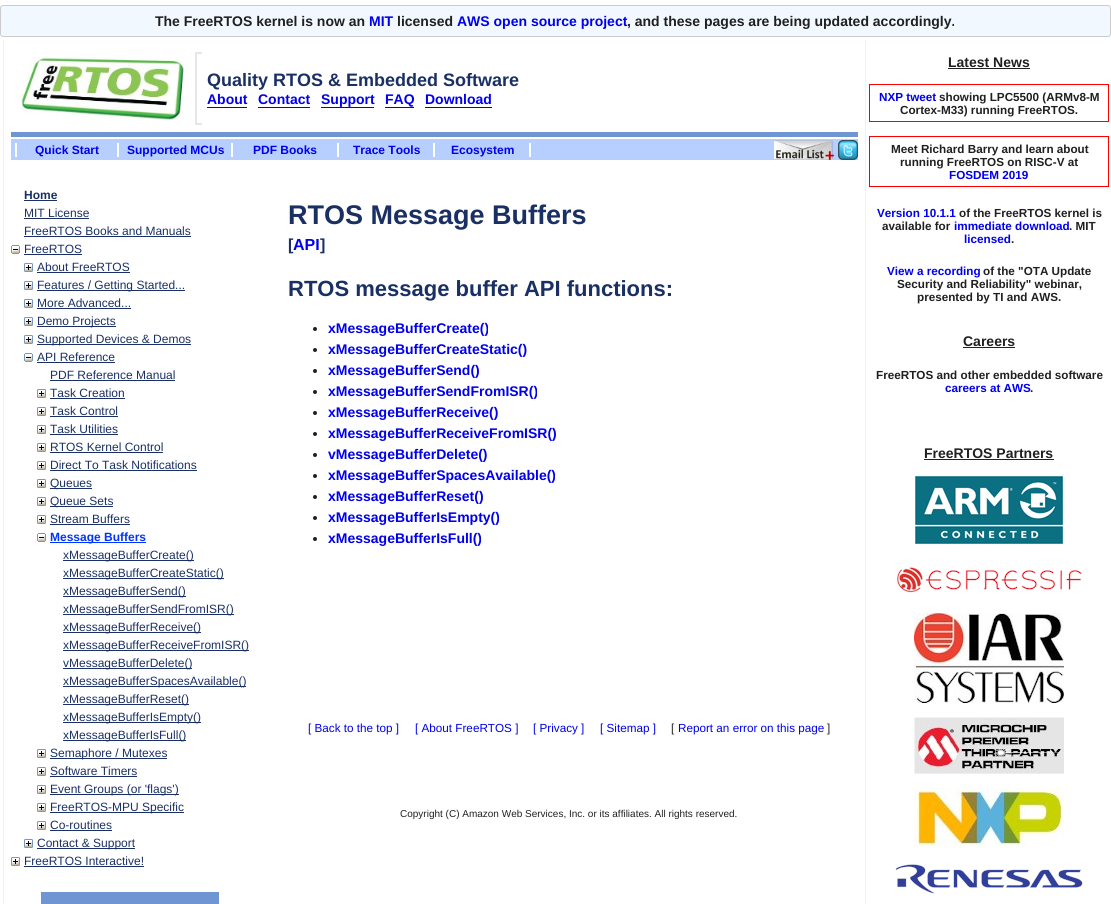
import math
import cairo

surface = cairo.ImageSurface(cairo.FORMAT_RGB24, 1111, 904)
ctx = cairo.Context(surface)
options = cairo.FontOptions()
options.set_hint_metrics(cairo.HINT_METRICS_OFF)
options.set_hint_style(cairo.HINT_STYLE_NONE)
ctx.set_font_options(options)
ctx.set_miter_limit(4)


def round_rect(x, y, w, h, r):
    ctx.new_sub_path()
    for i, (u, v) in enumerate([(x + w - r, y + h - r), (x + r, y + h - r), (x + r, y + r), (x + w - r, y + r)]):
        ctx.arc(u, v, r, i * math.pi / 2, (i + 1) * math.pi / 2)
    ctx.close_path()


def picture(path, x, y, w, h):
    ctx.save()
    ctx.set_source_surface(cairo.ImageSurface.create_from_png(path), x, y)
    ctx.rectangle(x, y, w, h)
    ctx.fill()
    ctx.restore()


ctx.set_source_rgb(1, 1, 1)
ctx.paint()
ctx.set_source_rgb(0.945, 0.969, 1)
round_rect(0.5, 5.5, 1110, 31, 2.5)
ctx.fill_preserve()
ctx.set_source_rgb(0.8, 0.8, 0.8)
ctx.set_line_width(1)
ctx.stroke()
ctx.select_font_face("Liberation Sans", cairo.FONT_SLANT_NORMAL, cairo.FONT_WEIGHT_BOLD)
ctx.set_font_size(14)
ctx.set_source_rgb(0.125, 0.125, 0.125)
ctx.move_to(155, 26)
ctx.show_text("The FreeRTOS kernel is now an")
ctx.set_source_rgb(0, 0, 0.933)
ctx.move_to(369, 26)
ctx.show_text("MIT")
ctx.set_source_rgb(0.125, 0.125, 0.125)
ctx.move_to(397, 26)
ctx.show_text("licensed")
ctx.set_source_rgb(0, 0, 0.933)
ctx.move_to(457, 26)
ctx.show_text("AWS open source project")
ctx.set_source_rgb(0.125, 0.125, 0.125)
ctx.move_to(627, 26)
ctx.show_text(", and these pages are being updated accordingly.")
ctx.set_source_rgb(0.941, 0.941, 0.941)
ctx.rectangle(865, 40, 1, 864)
ctx.fill()
ctx.rectangle(3, 40, 1, 864)
ctx.fill()
picture("img1.png", 21, 57, 163, 63)
ctx.set_source_rgb(0.902, 0.902, 0.902)
ctx.rectangle(195, 52, 7, 2)
ctx.fill()
ctx.rectangle(195, 123, 7, 2)
ctx.fill()
ctx.rectangle(195, 52, 2, 73)
ctx.fill()
ctx.set_font_size(18)
ctx.set_source_rgb(0.102, 0.188, 0.396)
ctx.move_to(207, 86)
ctx.show_text("Quality RTOS & Embedded Software")
ctx.set_font_size(14)
ctx.set_source_rgb(0, 0, 0.933)
ctx.move_to(207, 104)
ctx.show_text("About")
ctx.rectangle(207, 107, 40, 1)
ctx.fill()
ctx.move_to(258, 104)
ctx.show_text("Contact")
ctx.rectangle(258, 107, 52, 1)
ctx.fill()
ctx.move_to(321, 104)
ctx.show_text("Support")
ctx.rectangle(321, 107, 53, 1)
ctx.fill()
ctx.move_to(385, 104)
ctx.show_text("FAQ")
ctx.rectangle(385, 107, 29, 1)
ctx.fill()
ctx.move_to(425, 104)
ctx.show_text("Download")
ctx.rectangle(425, 107, 67, 1)
ctx.fill()
ctx.set_source_rgb(0.439, 0.584, 0.827)
ctx.rectangle(11, 132, 847, 5)
ctx.fill()
ctx.set_source_rgb(0.714, 0.812, 0.996)
ctx.rectangle(11, 139, 847, 21)
ctx.fill()
ctx.set_source_rgb(1, 1, 1)
ctx.rectangle(117, 143, 2, 14)
ctx.fill()
ctx.rectangle(15, 143, 2, 14)
ctx.fill()
ctx.set_font_size(12)
ctx.set_source_rgb(0, 0, 0.933)
ctx.move_to(35, 154)
ctx.show_text("Quick Start")
ctx.set_source_rgb(1, 1, 1)
ctx.rectangle(231, 143, 2, 14)
ctx.fill()
ctx.set_source_rgb(0, 0, 0.933)
ctx.move_to(127, 154)
ctx.show_text("Supported MCUs")
ctx.set_source_rgb(1, 1, 1)
ctx.rectangle(337, 143, 2, 14)
ctx.fill()
ctx.set_source_rgb(0, 0, 0.933)
ctx.move_to(253, 154)
ctx.show_text("PDF Books")
ctx.set_source_rgb(1, 1, 1)
ctx.rectangle(433, 143, 2, 14)
ctx.fill()
ctx.set_source_rgb(0, 0, 0.933)
ctx.move_to(353, 154)
ctx.show_text("Trace Tools")
ctx.set_source_rgb(1, 1, 1)
ctx.rectangle(529, 143, 2, 14)
ctx.fill()
ctx.set_source_rgb(0, 0, 0.933)
ctx.move_to(451, 154)
ctx.show_text("Ecosystem")
picture("img2.png", 773, 140, 61, 20)
picture("img3.png", 838, 140, 20, 20)
ctx.set_source_rgb(0.102, 0.188, 0.396)
ctx.move_to(24, 199)
ctx.show_text("Home")
ctx.rectangle(24, 200, 33, 1)
ctx.fill()
ctx.select_font_face("Liberation Sans")
ctx.move_to(24, 217)
ctx.show_text("MIT License")
ctx.rectangle(24, 218, 65, 1)
ctx.fill()
ctx.move_to(24, 235)
ctx.show_text("FreeRTOS Books and Manuals")
ctx.rectangle(24, 236, 167, 1)
ctx.fill()
picture("img4.png", 11, 245, 9, 9)
ctx.move_to(24, 253)
ctx.show_text("FreeRTOS")
ctx.rectangle(24, 254, 58, 1)
ctx.fill()
picture("img5.png", 24, 263, 9, 9)
ctx.move_to(37, 271)
ctx.show_text("About FreeRTOS")
ctx.rectangle(37, 272, 93, 1)
ctx.fill()
picture("img5.png", 24, 281, 9, 9)
ctx.rectangle(37, 290, 148, 1)
ctx.fill()
ctx.move_to(37, 289)
ctx.show_text("Features / Getting Started...")
picture("img5.png", 24, 299, 9, 9)
ctx.move_to(37, 307)
ctx.show_text("More Advanced...")
ctx.rectangle(37, 308, 94, 1)
ctx.fill()
picture("img5.png", 24, 317, 9, 9)
ctx.rectangle(37, 326, 79, 1)
ctx.fill()
ctx.move_to(37, 325)
ctx.show_text("Demo Projects")
picture("img5.png", 24, 335, 9, 9)
ctx.rectangle(37, 344, 154, 1)
ctx.fill()
ctx.move_to(37, 343)
ctx.show_text("Supported Devices & Demos")
picture("img4.png", 24, 353, 9, 9)
ctx.move_to(37, 361)
ctx.show_text("API Reference")
ctx.rectangle(37, 362, 78, 1)
ctx.fill()
ctx.move_to(50, 379)
ctx.show_text("PDF Reference Manual")
ctx.rectangle(50, 380, 125, 1)
ctx.fill()
picture("img5.png", 37, 389, 9, 9)
ctx.move_to(50, 397)
ctx.show_text("Task Creation")
ctx.rectangle(50, 398, 75, 1)
ctx.fill()
picture("img5.png", 37, 407, 9, 9)
ctx.move_to(50, 415)
ctx.show_text("Task Control")
ctx.rectangle(50, 416, 68, 1)
ctx.fill()
picture("img5.png", 37, 425, 9, 9)
ctx.move_to(50, 433)
ctx.show_text("Task Utilities")
ctx.rectangle(50, 434, 68, 1)
ctx.fill()
picture("img5.png", 37, 443, 9, 9)
ctx.move_to(50, 451)
ctx.show_text("RTOS Kernel Control")
ctx.rectangle(50, 452, 113, 1)
ctx.fill()
picture("img5.png", 37, 461, 9, 9)
ctx.move_to(50, 469)
ctx.show_text("Direct To Task Notifications")
ctx.rectangle(50, 470, 147, 1)
ctx.fill()
picture("img5.png", 37, 479, 9, 9)
ctx.rectangle(50, 488, 42, 1)
ctx.fill()
ctx.move_to(50, 487)
ctx.show_text("Queues")
picture("img5.png", 37, 497, 9, 9)
ctx.rectangle(50, 506, 63, 1)
ctx.fill()
ctx.move_to(50, 505)
ctx.show_text("Queue Sets")
picture("img5.png", 37, 515, 9, 9)
ctx.move_to(50, 523)
ctx.show_text("Stream Buffers")
ctx.rectangle(50, 524, 80, 1)
ctx.fill()
picture("img4.png", 37, 533, 9, 9)
ctx.set_source_rgb(0, 0.2, 1)
ctx.rectangle(50, 542, 96, 1)
ctx.fill()
ctx.select_font_face("Liberation Sans", cairo.FONT_SLANT_NORMAL, cairo.FONT_WEIGHT_BOLD)
ctx.move_to(50, 541)
ctx.show_text("Message Buffers")
ctx.set_source_rgb(0.102, 0.188, 0.396)
ctx.rectangle(63, 560, 131, 1)
ctx.fill()
ctx.select_font_face("Liberation Sans")
ctx.move_to(63, 559)
ctx.show_text("xMessageBufferCreate()")
ctx.rectangle(63, 578, 161, 1)
ctx.fill()
ctx.move_to(63, 577)
ctx.show_text("xMessageBufferCreateStatic()")
ctx.rectangle(63, 596, 123, 1)
ctx.fill()
ctx.move_to(63, 595)
ctx.show_text("xMessageBufferSend()")
ctx.rectangle(63, 614, 171, 1)
ctx.fill()
ctx.move_to(63, 613)
ctx.show_text("xMessageBufferSendFromISR()")
ctx.rectangle(63, 632, 138, 1)
ctx.fill()
ctx.move_to(63, 631)
ctx.show_text("xMessageBufferReceive()")
ctx.rectangle(63, 650, 186, 1)
ctx.fill()
ctx.move_to(63, 649)
ctx.show_text("xMessageBufferReceiveFromISR()")
ctx.rectangle(63, 668, 129, 1)
ctx.fill()
ctx.move_to(63, 667)
ctx.show_text("vMessageBufferDelete()")
ctx.rectangle(63, 686, 183, 1)
ctx.fill()
ctx.move_to(63, 685)
ctx.show_text("xMessageBufferSpacesAvailable()")
ctx.rectangle(63, 704, 126, 1)
ctx.fill()
ctx.move_to(63, 703)
ctx.show_text("xMessageBufferReset()")
ctx.rectangle(63, 722, 138, 1)
ctx.fill()
ctx.move_to(63, 721)
ctx.show_text("xMessageBufferIsEmpty()")
ctx.rectangle(63, 740, 123, 1)
ctx.fill()
ctx.move_to(63, 739)
ctx.show_text("xMessageBufferIsFull()")
picture("img5.png", 37, 749, 9, 9)
ctx.rectangle(50, 758, 117, 1)
ctx.fill()
ctx.move_to(50, 757)
ctx.show_text("Semaphore / Mutexes")
picture("img5.png", 37, 767, 9, 9)
ctx.move_to(50, 775)
ctx.show_text("Software Timers")
ctx.rectangle(50, 776, 87, 1)
ctx.fill()
picture("img5.png", 37, 785, 9, 9)
ctx.rectangle(50, 794, 129, 1)
ctx.fill()
ctx.move_to(50, 793)
ctx.show_text("Event Groups (or 'flags')")
picture("img5.png", 37, 803, 9, 9)
ctx.rectangle(50, 812, 134, 1)
ctx.fill()
ctx.move_to(50, 811)
ctx.show_text("FreeRTOS-MPU Specific")
picture("img5.png", 37, 821, 9, 9)
ctx.move_to(50, 829)
ctx.show_text("Co-routines")
ctx.rectangle(50, 830, 62, 1)
ctx.fill()
picture("img5.png", 24, 839, 9, 9)
ctx.rectangle(37, 848, 98, 1)
ctx.fill()
ctx.move_to(37, 847)
ctx.show_text("Contact & Support")
picture("img5.png", 11, 857, 9, 9)
ctx.move_to(24, 865)
ctx.show_text("FreeRTOS Interactive!")
ctx.rectangle(24, 866, 120, 1)
ctx.fill()
ctx.set_source_rgb(0.439, 0.584, 0.827)
ctx.rectangle(41, 892, 178, 12)
ctx.fill()
ctx.select_font_face("Liberation Sans", cairo.FONT_SLANT_NORMAL, cairo.FONT_WEIGHT_BOLD)
ctx.set_font_size(27)
ctx.set_source_rgb(0.102, 0.188, 0.396)
ctx.move_to(288, 224)
ctx.show_text("RTOS Message Buffers")
ctx.set_font_size(16)
ctx.move_to(288, 250)
ctx.show_text("[")
ctx.set_source_rgb(0, 0, 0.933)
ctx.move_to(293, 250)
ctx.show_text("API")
ctx.set_source_rgb(0.102, 0.188, 0.396)
ctx.move_to(320, 250)
ctx.show_text("]")
ctx.set_font_size(22)
ctx.move_to(288, 296)
ctx.show_text("RTOS message buffer API functions:")
ctx.set_source_rgb(0.125, 0.125, 0.125)
ctx.new_path()
ctx.arc(315, 329, 2, 0, 2 * math.pi)
ctx.fill()
ctx.set_font_size(14)
ctx.set_source_rgb(0, 0, 0.933)
ctx.move_to(328, 333)
ctx.show_text("xMessageBufferCreate()")
ctx.set_source_rgb(0.125, 0.125, 0.125)
ctx.new_path()
ctx.arc(315, 350, 2, 0, 2 * math.pi)
ctx.fill()
ctx.set_source_rgb(0, 0, 0.933)
ctx.move_to(328, 354)
ctx.show_text("xMessageBufferCreateStatic()")
ctx.set_source_rgb(0.125, 0.125, 0.125)
ctx.new_path()
ctx.arc(315, 371, 2, 0, 2 * math.pi)
ctx.fill()
ctx.set_source_rgb(0, 0, 0.933)
ctx.move_to(328, 375)
ctx.show_text("xMessageBufferSend()")
ctx.set_source_rgb(0.125, 0.125, 0.125)
ctx.new_path()
ctx.arc(315, 392, 2, 0, 2 * math.pi)
ctx.fill()
ctx.set_source_rgb(0, 0, 0.933)
ctx.move_to(328, 396)
ctx.show_text("xMessageBufferSendFromISR()")
ctx.set_source_rgb(0.125, 0.125, 0.125)
ctx.new_path()
ctx.arc(315, 413, 2, 0, 2 * math.pi)
ctx.fill()
ctx.set_source_rgb(0, 0, 0.933)
ctx.move_to(328, 417)
ctx.show_text("xMessageBufferReceive()")
ctx.set_source_rgb(0.125, 0.125, 0.125)
ctx.new_path()
ctx.arc(315, 434, 2, 0, 2 * math.pi)
ctx.fill()
ctx.set_source_rgb(0, 0, 0.933)
ctx.move_to(328, 438)
ctx.show_text("xMessageBufferReceiveFromISR()")
ctx.set_source_rgb(0.125, 0.125, 0.125)
ctx.new_path()
ctx.arc(315, 455, 2, 0, 2 * math.pi)
ctx.fill()
ctx.set_source_rgb(0, 0, 0.933)
ctx.move_to(328, 459)
ctx.show_text("vMessageBufferDelete()")
ctx.set_source_rgb(0.125, 0.125, 0.125)
ctx.new_path()
ctx.arc(315, 476, 2, 0, 2 * math.pi)
ctx.fill()
ctx.set_source_rgb(0, 0, 0.933)
ctx.move_to(328, 480)
ctx.show_text("xMessageBufferSpacesAvailable()")
ctx.set_source_rgb(0.125, 0.125, 0.125)
ctx.new_path()
ctx.arc(315, 497, 2, 0, 2 * math.pi)
ctx.fill()
ctx.set_source_rgb(0, 0, 0.933)
ctx.move_to(328, 501)
ctx.show_text("xMessageBufferReset()")
ctx.set_source_rgb(0.125, 0.125, 0.125)
ctx.new_path()
ctx.arc(315, 518, 2, 0, 2 * math.pi)
ctx.fill()
ctx.set_source_rgb(0, 0, 0.933)
ctx.move_to(328, 522)
ctx.show_text("xMessageBufferIsEmpty()")
ctx.set_source_rgb(0.125, 0.125, 0.125)
ctx.new_path()
ctx.arc(315, 539, 2, 0, 2 * math.pi)
ctx.fill()
ctx.set_source_rgb(0, 0, 0.933)
ctx.move_to(328, 543)
ctx.show_text("xMessageBufferIsFull()")
ctx.select_font_face("Liberation Sans")
ctx.set_font_size(11.7)
ctx.move_to(308, 732)
ctx.show_text("[ Back to the top ]")
ctx.move_to(415, 732)
ctx.show_text("[ About FreeRTOS ]")
ctx.move_to(533, 732)
ctx.show_text("[ Privacy ]")
ctx.move_to(600, 732)
ctx.show_text("[ Sitemap ]")
ctx.set_source_rgb(0.125, 0.125, 0.125)
ctx.move_to(671, 732)
ctx.show_text("[")
ctx.set_source_rgb(0, 0, 0.933)
ctx.move_to(678, 732)
ctx.show_text("Report an error on this page")
ctx.set_source_rgb(0.125, 0.125, 0.125)
ctx.move_to(827, 732)
ctx.show_text("]")
ctx.set_font_size(10)
ctx.move_to(400, 817)
ctx.show_text("Copyright (C) Amazon Web Services, Inc. or its affiliates. All rights reserved.")
ctx.select_font_face("Liberation Sans", cairo.FONT_SLANT_NORMAL, cairo.FONT_WEIGHT_BOLD)
ctx.set_font_size(14)
ctx.move_to(948, 67)
ctx.show_text("Latest News")
ctx.rectangle(948, 68, 82, 1)
ctx.fill()
ctx.rectangle(869.5, 84.5, 239, 37)
ctx.set_source_rgb(1, 0, 0)
ctx.stroke()
ctx.set_font_size(11.7)
ctx.set_source_rgb(0, 0, 0.933)
ctx.move_to(879, 101)
ctx.show_text("NXP tweet")
ctx.set_source_rgb(0.125, 0.125, 0.125)
ctx.move_to(939, 101)
ctx.show_text("showing LPC5500 (ARMv8-M")
ctx.move_to(900, 114)
ctx.show_text("Cortex-M33) running FreeRTOS.")
ctx.rectangle(869.5, 136.5, 239, 50)
ctx.set_source_rgb(1, 0, 0)
ctx.stroke()
ctx.set_source_rgb(0.125, 0.125, 0.125)
ctx.move_to(891, 153)
ctx.show_text("Meet Richard Barry and learn about")
ctx.move_to(900, 166)
ctx.show_text("running FreeRTOS on RISC-V at")
ctx.set_source_rgb(0, 0, 0.933)
ctx.move_to(949, 179)
ctx.show_text("FOSDEM 2019")
ctx.move_to(877, 217)
ctx.show_text("Version 10.1.1")
ctx.set_source_rgb(0.125, 0.125, 0.125)
ctx.move_to(959, 217)
ctx.show_text("of the FreeRTOS kernel is")
ctx.move_to(882, 230)
ctx.show_text("available for")
ctx.set_source_rgb(0, 0, 0.933)
ctx.move_to(954, 230)
ctx.show_text("immediate download")
ctx.set_source_rgb(0.125, 0.125, 0.125)
ctx.move_to(1069, 230)
ctx.show_text(". MIT")
ctx.set_source_rgb(0, 0, 0.933)
ctx.move_to(964, 243)
ctx.show_text("licensed")
ctx.set_source_rgb(0.125, 0.125, 0.125)
ctx.move_to(1011, 243)
ctx.show_text(".")
ctx.set_source_rgb(0, 0, 0.933)
ctx.move_to(887, 275)
ctx.show_text("View a recording")
ctx.set_source_rgb(0.125, 0.125, 0.125)
ctx.move_to(983, 275)
ctx.show_text("of the \"OTA Update")
ctx.move_to(897, 288)
ctx.show_text("Security and Reliability\" webinar,")
ctx.move_to(917, 301)
ctx.show_text("presented by TI and AWS.")
ctx.set_font_size(14)
ctx.move_to(963, 346)
ctx.show_text("Careers")
ctx.rectangle(963, 347, 52, 1)
ctx.fill()
ctx.set_font_size(11.7)
ctx.move_to(876, 379)
ctx.show_text("FreeRTOS and other embedded software")
ctx.set_source_rgb(0, 0, 0.933)
ctx.move_to(945, 392)
ctx.show_text("careers at AWS")
ctx.set_source_rgb(0.125, 0.125, 0.125)
ctx.move_to(1030, 392)
ctx.show_text(".")
ctx.set_font_size(14)
ctx.move_to(924, 458)
ctx.show_text("FreeRTOS Partners")
ctx.rectangle(924, 459, 130, 1)
ctx.fill()
picture("img6.png", 915, 476, 149, 68)
picture("img7.png", 897, 567, 185, 26)
picture("img8.png", 914, 613, 150, 90)
picture("img9.png", 914, 717, 150, 57)
picture("img10.png", 914, 788, 150, 59)
picture("img11.png", 895, 864, 188, 30)
surface.write_to_png("page.png")
